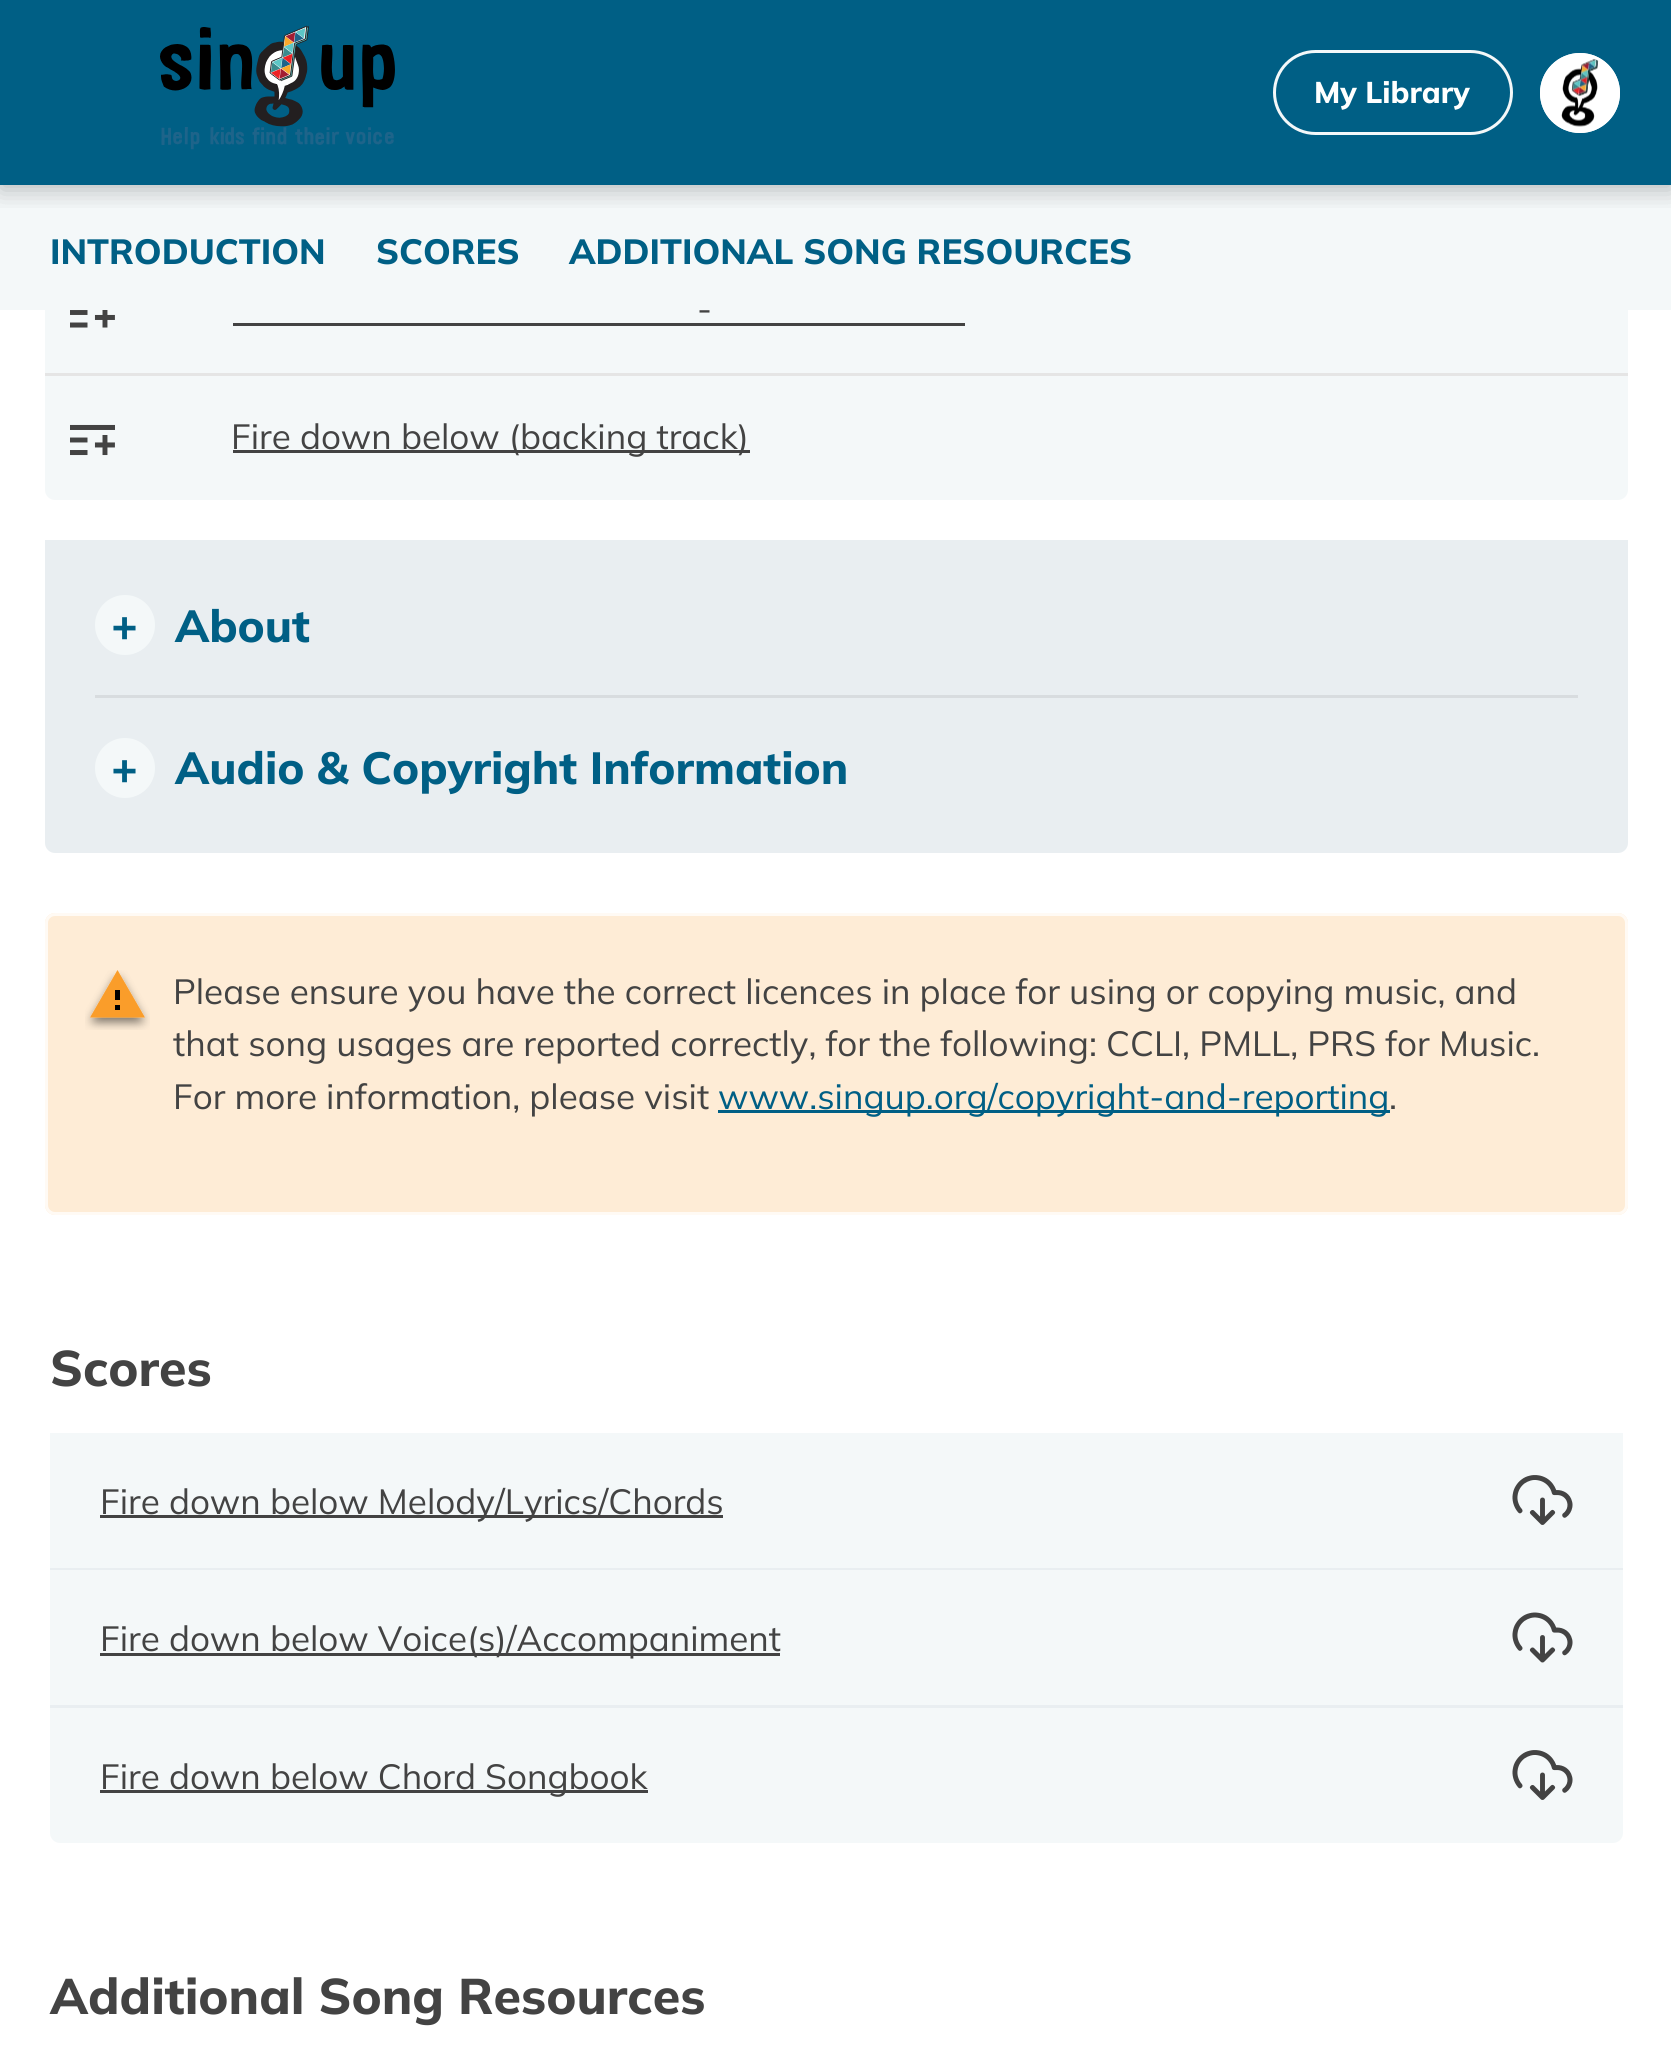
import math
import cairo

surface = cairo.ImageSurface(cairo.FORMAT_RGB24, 1671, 2049)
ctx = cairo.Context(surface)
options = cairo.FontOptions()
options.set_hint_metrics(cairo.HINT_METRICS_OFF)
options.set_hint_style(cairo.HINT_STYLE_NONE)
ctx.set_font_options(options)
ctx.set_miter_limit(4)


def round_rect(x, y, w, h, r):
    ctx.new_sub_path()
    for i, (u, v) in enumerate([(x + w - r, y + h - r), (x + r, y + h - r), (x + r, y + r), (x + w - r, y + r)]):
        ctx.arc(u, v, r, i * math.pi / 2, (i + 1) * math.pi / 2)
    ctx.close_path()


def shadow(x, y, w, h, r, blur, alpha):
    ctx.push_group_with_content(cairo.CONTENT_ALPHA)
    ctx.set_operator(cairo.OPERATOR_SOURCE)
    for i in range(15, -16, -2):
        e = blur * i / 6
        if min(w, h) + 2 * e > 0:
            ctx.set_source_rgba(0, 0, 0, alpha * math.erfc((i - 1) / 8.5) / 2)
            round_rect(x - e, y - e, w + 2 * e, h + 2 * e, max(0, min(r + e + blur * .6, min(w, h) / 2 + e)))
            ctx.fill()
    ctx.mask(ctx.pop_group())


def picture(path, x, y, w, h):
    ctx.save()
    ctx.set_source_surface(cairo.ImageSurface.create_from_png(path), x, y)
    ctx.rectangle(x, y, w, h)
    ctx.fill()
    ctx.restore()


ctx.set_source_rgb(1, 1, 1)
ctx.paint()
ctx.set_source_rgb(0.957, 0.969, 0.973)
ctx.new_path()
ctx.move_to(45, -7)
ctx.line_to(1628, -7)
ctx.line_to(1628, 490)
ctx.curve_to(1628, 495.5, 1623.5, 500, 1618, 500)
ctx.line_to(55, 500)
ctx.curve_to(49.5, 500, 45, 495.5, 45, 490)
ctx.close_path()
ctx.fill()
ctx.set_source_rgb(0, 0.373, 0.522)
ctx.rectangle(0, 0, 1671, 185)
ctx.fill()
ctx.set_source_rgb(0.957, 0.969, 0.973)
ctx.rectangle(0, 185, 1671, 125)
ctx.fill()
ctx.save()
ctx.rectangle(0, 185, 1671, 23)
ctx.clip()
ctx.set_source_rgb(0, 0, 0)
shadow(0, 5, 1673, 185, 0, 12.5, 0.25)
ctx.restore()
picture("img1.png", 160, 25, 235, 125)
round_rect(1274.5, 51.5, 237, 82, 41)
ctx.set_line_width(3)
ctx.stroke()
ctx.select_font_face("Mulish ExtraBold")
ctx.set_font_size(30)
ctx.set_source_rgb(1, 1, 1)
ctx.move_to(1314, 103)
ctx.show_text("My Library")
ctx.new_path()
ctx.arc(1580, 93, 40, 0, 2 * math.pi)
ctx.fill()
picture("img2.png", 1561, 57, 38, 70)
ctx.arc(1580, 93, 38.5, 0, 2 * math.pi)
ctx.stroke()
ctx.set_font_size(35)
ctx.set_source_rgb(0, 0.373, 0.522)
ctx.move_to(50, 264)
ctx.show_text("INTRODUCTION")
ctx.move_to(376, 264)
ctx.show_text("SCORES")
ctx.move_to(569, 264)
ctx.show_text("ADDITIONAL SONG RESOURCES")
ctx.set_source_rgb(0.898, 0.898, 0.898)
ctx.rectangle(45, 373, 1583, 3)
ctx.fill()
picture("img3.png", 70, 310, 45, 18)
ctx.select_font_face("Mulish")
ctx.set_source_rgb(0.263, 0.263, 0.263)
ctx.move_to(697, 321)
ctx.show_text("-")
ctx.rectangle(233, 323, 732, 3)
ctx.fill()
picture("img4.png", 70, 424, 45, 32)
ctx.rectangle(233, 450, 517, 3)
ctx.fill()
ctx.move_to(231, 449)
ctx.show_text("Fire down below (backing track)")
ctx.set_source_rgb(0.914, 0.933, 0.945)
ctx.new_path()
ctx.move_to(45, 540)
ctx.line_to(1628, 540)
ctx.line_to(1628, 843)
ctx.curve_to(1628, 848.5, 1623.5, 853, 1618, 853)
ctx.line_to(55, 853)
ctx.curve_to(49.5, 853, 45, 848.5, 45, 843)
ctx.close_path()
ctx.fill()
ctx.set_source_rgb(0.847, 0.863, 0.875)
ctx.rectangle(95, 695, 1483, 3)
ctx.fill()
ctx.set_source_rgb(0.957, 0.969, 0.973)
ctx.arc(125, 625, 30, 0, 2 * math.pi)
ctx.fill()
ctx.select_font_face("Mulish ExtraBold")
ctx.set_font_size(45)
ctx.set_source_rgb(0, 0.373, 0.522)
ctx.move_to(111, 641)
ctx.show_text("+")
ctx.move_to(175, 642)
ctx.show_text("About")
ctx.set_source_rgb(0.957, 0.969, 0.973)
ctx.new_path()
ctx.arc(125, 768, 30, 0, 2 * math.pi)
ctx.fill()
ctx.set_source_rgb(0, 0.373, 0.522)
ctx.move_to(111, 784)
ctx.show_text("+")
ctx.move_to(175, 784)
ctx.show_text("Audio & Copyright Information")
ctx.set_source_rgb(0.996, 0.925, 0.839)
round_rect(45, 913, 1583, 302, 10)
ctx.fill()
picture("img5.png", 85, 970, 65, 60)
round_rect(46.5, 914.5, 1580, 299, 8.5)
ctx.set_source_rgb(1, 0.98, 0.957)
ctx.stroke()
ctx.select_font_face("Mulish")
ctx.set_font_size(35)
ctx.set_source_rgb(0.263, 0.263, 0.263)
ctx.move_to(173, 1004)
ctx.show_text("Please ensure you have the correct licences in place for using or copying music, and")
ctx.move_to(173, 1056)
ctx.show_text("that song usages are reported correctly, for the following: CCLI, PMLL, PRS for Music.")
ctx.move_to(173, 1109)
ctx.show_text("For more information, please visit")
ctx.set_source_rgb(0, 0.373, 0.522)
ctx.rectangle(718, 1110, 672, 3)
ctx.fill()
ctx.move_to(718, 1109)
ctx.show_text("www.singup.org/copyright-and-reporting")
ctx.set_source_rgb(0.263, 0.263, 0.263)
ctx.move_to(1389, 1109)
ctx.show_text(".")
ctx.select_font_face("Mulish ExtraBold")
ctx.set_font_size(50)
ctx.move_to(50, 1386)
ctx.show_text("Scores")
ctx.set_source_rgb(0.957, 0.969, 0.973)
ctx.rectangle(50, 1433, 1573, 135)
ctx.fill()
ctx.set_source_rgb(0.914, 0.933, 0.945)
ctx.rectangle(50, 1568, 1573, 2)
ctx.fill()
ctx.set_source_rgb(0.263, 0.263, 0.263)
ctx.rectangle(100, 1515, 623, 3)
ctx.fill()
ctx.select_font_face("Mulish")
ctx.set_font_size(35)
ctx.move_to(100, 1514)
ctx.show_text("Fire down below Melody/Lyrics/Chords")
picture("img6.png", 1512, 1475, 61, 50)
ctx.set_source_rgb(0.957, 0.969, 0.973)
ctx.rectangle(50, 1570, 1573, 135)
ctx.fill()
ctx.set_source_rgb(0.914, 0.933, 0.945)
ctx.rectangle(50, 1705, 1573, 3)
ctx.fill()
ctx.set_source_rgb(0.263, 0.263, 0.263)
ctx.rectangle(100, 1653, 680, 3)
ctx.fill()
ctx.move_to(100, 1651)
ctx.show_text("Fire down below Voice(s)/Accompaniment")
picture("img7.png", 1512, 1612, 61, 51)
ctx.set_source_rgb(0.957, 0.969, 0.973)
ctx.new_path()
ctx.move_to(50, 1708)
ctx.line_to(1623, 1708)
ctx.line_to(1623, 1833)
ctx.curve_to(1623, 1838.5, 1618.5, 1843, 1613, 1843)
ctx.line_to(60, 1843)
ctx.curve_to(54.5, 1843, 50, 1838.5, 50, 1833)
ctx.close_path()
ctx.fill()
ctx.set_source_rgb(0.263, 0.263, 0.263)
ctx.rectangle(100, 1790, 548, 3)
ctx.fill()
ctx.move_to(100, 1789)
ctx.show_text("Fire down below Chord Songbook")
picture("img6.png", 1512, 1750, 61, 50)
ctx.select_font_face("Mulish ExtraBold")
ctx.set_font_size(50)
ctx.move_to(50, 2014)
ctx.show_text("Additional Song Resources")
surface.write_to_png("page.png")
